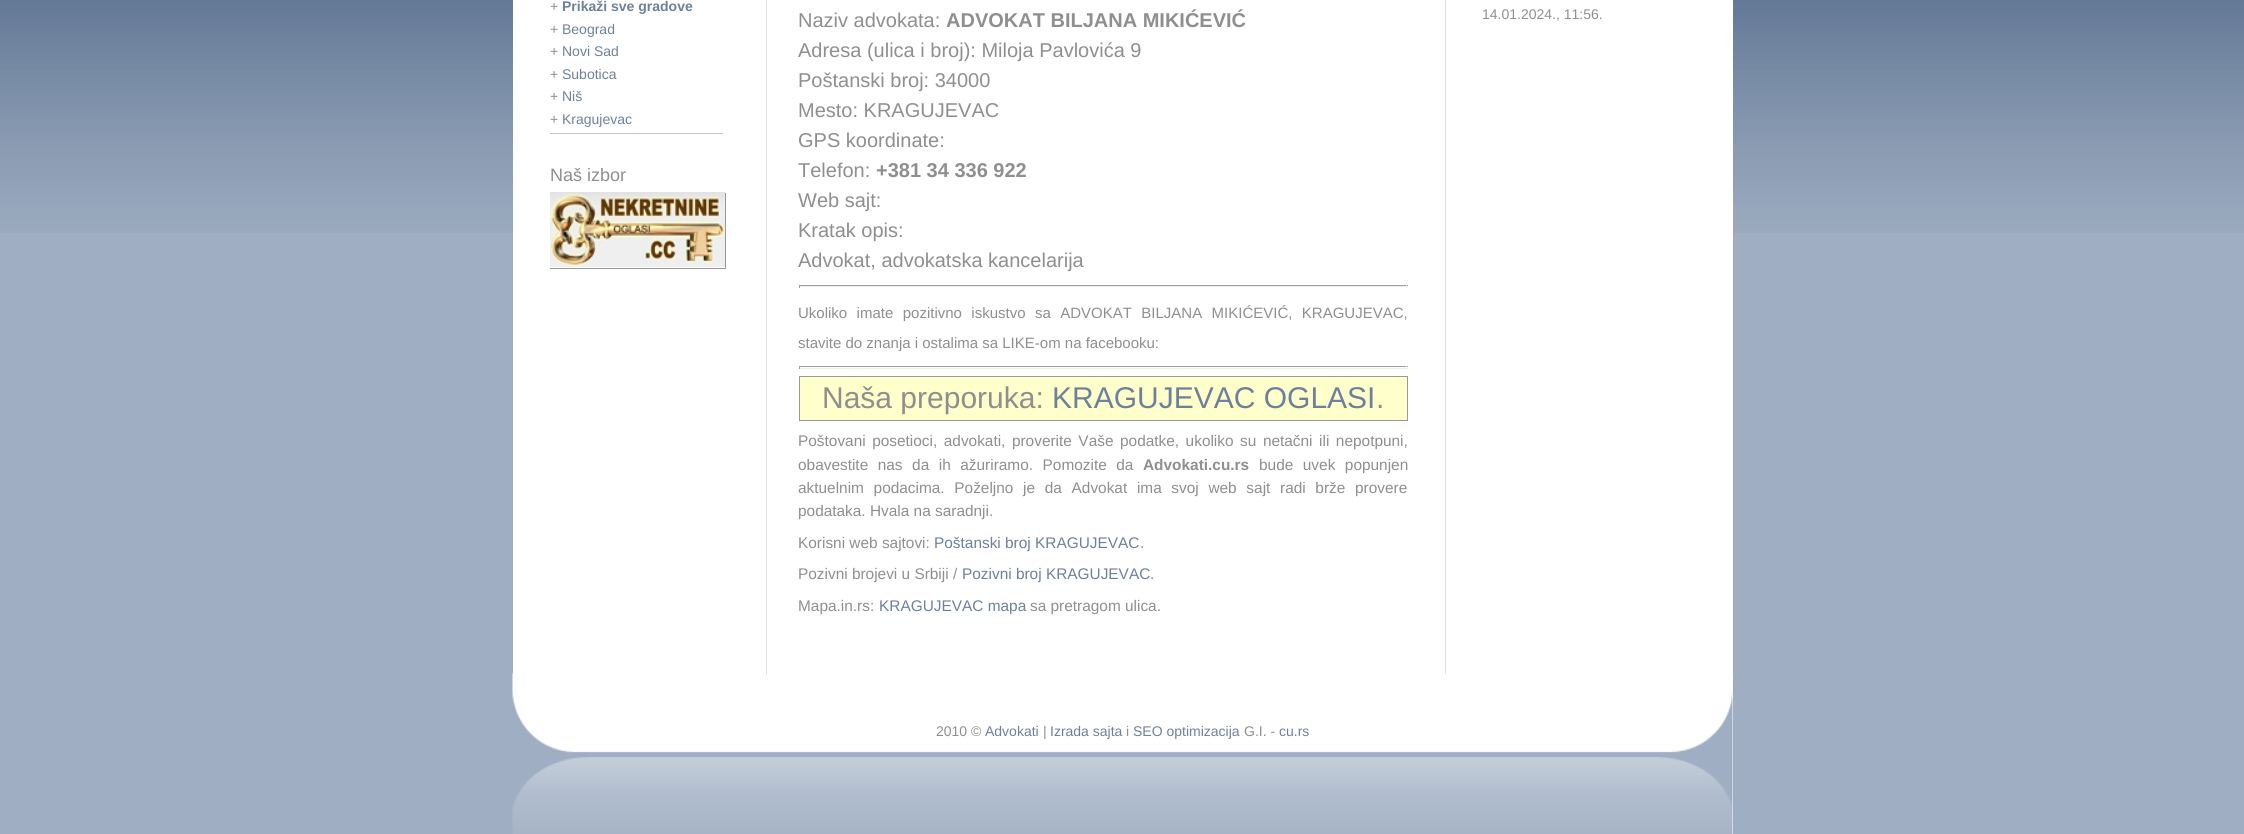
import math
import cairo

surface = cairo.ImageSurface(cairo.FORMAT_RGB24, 2244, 834)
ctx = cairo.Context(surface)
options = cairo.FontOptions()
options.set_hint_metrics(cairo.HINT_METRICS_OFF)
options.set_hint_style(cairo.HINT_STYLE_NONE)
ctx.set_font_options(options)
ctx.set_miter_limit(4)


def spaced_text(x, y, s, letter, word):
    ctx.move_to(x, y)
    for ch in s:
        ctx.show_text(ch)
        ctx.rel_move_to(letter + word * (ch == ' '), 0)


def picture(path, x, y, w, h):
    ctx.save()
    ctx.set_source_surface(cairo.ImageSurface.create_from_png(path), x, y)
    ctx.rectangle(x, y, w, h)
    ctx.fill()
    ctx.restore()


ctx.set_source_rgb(0.624, 0.682, 0.761)
ctx.paint()
picture("img1.png", 0, 0, 2244, 233)
ctx.set_source_rgb(1, 1, 1)
ctx.rectangle(513, 0, 1220, 834)
ctx.fill()
ctx.set_source_rgb(0.737, 0.776, 0.831)
ctx.rectangle(550, 133, 173, 1)
ctx.fill()
ctx.select_font_face("Liberation Sans")
ctx.set_font_size(14)
ctx.set_source_rgb(0.561, 0.561, 0.561)
ctx.move_to(550, 11)
ctx.show_text("+")
ctx.select_font_face("Liberation Sans", cairo.FONT_SLANT_NORMAL, cairo.FONT_WEIGHT_BOLD)
ctx.set_source_rgb(0.427, 0.506, 0.616)
ctx.move_to(562, 11)
ctx.show_text("Prikaži sve gradove")
ctx.select_font_face("Liberation Sans")
ctx.set_source_rgb(0.561, 0.561, 0.561)
ctx.move_to(550, 34)
ctx.show_text("+")
ctx.set_source_rgb(0.427, 0.506, 0.616)
ctx.move_to(562, 34)
ctx.show_text("Beograd")
ctx.set_source_rgb(0.561, 0.561, 0.561)
ctx.move_to(550, 56)
ctx.show_text("+")
ctx.set_source_rgb(0.427, 0.506, 0.616)
ctx.move_to(562, 56)
ctx.show_text("Novi Sad")
ctx.set_source_rgb(0.561, 0.561, 0.561)
ctx.move_to(550, 79)
ctx.show_text("+")
ctx.set_source_rgb(0.427, 0.506, 0.616)
ctx.move_to(562, 79)
ctx.show_text("Subotica")
ctx.set_source_rgb(0.561, 0.561, 0.561)
ctx.move_to(550, 101)
ctx.show_text("+")
ctx.set_source_rgb(0.427, 0.506, 0.616)
ctx.move_to(562, 101)
ctx.show_text("Niš")
ctx.set_source_rgb(0.561, 0.561, 0.561)
ctx.move_to(550, 124)
ctx.show_text("+")
ctx.set_source_rgb(0.427, 0.506, 0.616)
ctx.move_to(562, 124)
ctx.show_text("Kragujevac")
ctx.set_font_size(18)
ctx.set_source_rgb(0.561, 0.561, 0.561)
ctx.move_to(550, 181)
ctx.show_text("Naš izbor")
picture("img2.png", 550, 192, 175, 75)
ctx.set_source_rgb(0.6, 0.6, 0.6)
ctx.rectangle(725, 193, 1, 76)
ctx.fill()
ctx.rectangle(550, 268, 176, 1)
ctx.fill()
picture("img3.png", 512, 673, 1221, 161)
ctx.set_source_rgb(0.878, 0.878, 0.878)
ctx.rectangle(1445, 0, 1, 674)
ctx.fill()
ctx.rectangle(766, 0, 1, 674)
ctx.fill()
ctx.set_font_size(20)
ctx.set_source_rgb(0.561, 0.561, 0.561)
ctx.move_to(798, 27)
ctx.show_text("Naziv advokata:")
ctx.select_font_face("Liberation Sans", cairo.FONT_SLANT_NORMAL, cairo.FONT_WEIGHT_BOLD)
ctx.move_to(946, 27)
ctx.show_text("ADVOKAT BILJANA MIKIĆEVIĆ")
ctx.select_font_face("Liberation Sans")
ctx.move_to(798, 57)
ctx.show_text("Adresa (ulica i broj): Miloja Pavlovića 9")
ctx.move_to(798, 87)
ctx.show_text("Poštanski broj: 34000")
ctx.move_to(798, 117)
ctx.show_text("Mesto: KRAGUJEVAC")
ctx.move_to(798, 147)
ctx.show_text("GPS koordinate:")
ctx.move_to(798, 177)
ctx.show_text("Telefon:")
ctx.select_font_face("Liberation Sans", cairo.FONT_SLANT_NORMAL, cairo.FONT_WEIGHT_BOLD)
ctx.move_to(876, 177)
ctx.show_text("+381 34 336 922")
ctx.select_font_face("Liberation Sans")
ctx.move_to(798, 207)
ctx.show_text("Web sajt:")
ctx.move_to(798, 237)
ctx.show_text("Kratak opis:")
ctx.move_to(798, 267)
ctx.show_text("Advokat, advokatska kancelarija")
ctx.set_source_rgb(0.624, 0.624, 0.624)
ctx.rectangle(799, 285, 609, 1)
ctx.fill()
ctx.set_source_rgb(0.933, 0.933, 0.933)
ctx.rectangle(1406, 285, 1, 3)
ctx.fill()
ctx.rectangle(799, 286, 609, 1)
ctx.fill()
ctx.set_source_rgb(0.624, 0.624, 0.624)
ctx.rectangle(799, 285, 1, 3)
ctx.fill()
ctx.set_font_size(15)
ctx.set_source_rgb(0.561, 0.561, 0.561)
spaced_text(798, 318, "Ukoliko imate pozitivno iskustvo sa ADVOKAT BILJANA MIKIĆEVIĆ, KRAGUJEVAC,", 0, 5.25)
ctx.move_to(798, 348)
ctx.show_text("stavite do znanja i ostalima sa LIKE-om na facebooku:")
ctx.set_source_rgb(0.624, 0.624, 0.624)
ctx.rectangle(799, 366, 609, 1)
ctx.fill()
ctx.set_source_rgb(0.933, 0.933, 0.933)
ctx.rectangle(1406, 366, 1, 3)
ctx.fill()
ctx.rectangle(799, 368, 609, 1)
ctx.fill()
ctx.set_source_rgb(0.624, 0.624, 0.624)
ctx.rectangle(799, 366, 1, 3)
ctx.fill()
ctx.set_source_rgb(1, 1, 0.8)
ctx.rectangle(799.5, 376.5, 608, 44)
ctx.fill_preserve()
ctx.set_source_rgb(0.6, 0.6, 0.6)
ctx.set_line_width(1)
ctx.stroke()
ctx.set_font_size(30)
ctx.set_source_rgb(0.561, 0.561, 0.561)
ctx.move_to(822, 408)
ctx.show_text("Naša preporuka:")
ctx.set_source_rgb(0.427, 0.506, 0.616)
ctx.move_to(1052, 408)
ctx.show_text("KRAGUJEVAC OGLASI")
ctx.set_source_rgb(0.561, 0.561, 0.561)
ctx.move_to(1376, 408)
ctx.show_text(".")
ctx.set_font_size(15.4)
spaced_text(798, 446, "Poštovani posetioci, advokati, proverite Vaše podatke, ukoliko su netačni ili nepotpuni,", 0, 2.25)
spaced_text(798, 470, "obavestite nas da ih ažuriramo. Pomozite da", 0, 5.25)
ctx.select_font_face("Liberation Sans", cairo.FONT_SLANT_NORMAL, cairo.FONT_WEIGHT_BOLD)
ctx.move_to(1143, 470)
ctx.show_text("Advokati.cu.rs")
ctx.select_font_face("Liberation Sans")
spaced_text(1259, 470, "bude uvek popunjen", 0, 5.25)
spaced_text(798, 493, "aktuelnim podacima. Poželjno je da Advokat ima svoj web sajt radi brže provere", 0, 5.4)
ctx.move_to(798, 516)
ctx.show_text("podataka. Hvala na saradnji.")
ctx.move_to(798, 548)
ctx.show_text("Korisni web sajtovi:")
ctx.set_source_rgb(0.427, 0.506, 0.616)
ctx.move_to(934, 548)
ctx.show_text("Poštanski broj KRAGUJEVAC")
ctx.set_source_rgb(0.561, 0.561, 0.561)
ctx.move_to(1140, 548)
ctx.show_text(".")
ctx.move_to(798, 579)
ctx.show_text("Pozivni brojevi u Srbiji /")
ctx.set_source_rgb(0.427, 0.506, 0.616)
ctx.move_to(962, 579)
ctx.show_text("Pozivni broj KRAGUJEVAC")
ctx.set_source_rgb(0.561, 0.561, 0.561)
ctx.move_to(1150, 579)
ctx.show_text(".")
ctx.move_to(798, 611)
ctx.show_text("Mapa.in.rs:")
ctx.set_source_rgb(0.427, 0.506, 0.616)
ctx.move_to(879, 611)
ctx.show_text("KRAGUJEVAC mapa")
ctx.set_source_rgb(0.561, 0.561, 0.561)
ctx.move_to(1030, 611)
ctx.show_text("sa pretragom ulica.")
ctx.set_font_size(14)
ctx.move_to(1482, 19)
ctx.show_text("14.01.2024., 11:56.")
ctx.move_to(936, 736)
ctx.show_text("2010 ©")
ctx.set_source_rgb(0.427, 0.506, 0.616)
ctx.move_to(985, 736)
ctx.show_text("Advokati")
ctx.set_source_rgb(0.561, 0.561, 0.561)
ctx.move_to(1043, 736)
ctx.show_text("|")
ctx.set_source_rgb(0.427, 0.506, 0.616)
ctx.move_to(1050, 736)
ctx.show_text("Izrada sajta")
ctx.set_source_rgb(0.561, 0.561, 0.561)
ctx.move_to(1126, 736)
ctx.show_text("i")
ctx.set_source_rgb(0.427, 0.506, 0.616)
ctx.move_to(1133, 736)
ctx.show_text("SEO optimizacija")
ctx.set_source_rgb(0.561, 0.561, 0.561)
ctx.move_to(1244, 736)
ctx.show_text("G.I. -")
ctx.set_source_rgb(0.427, 0.506, 0.616)
ctx.move_to(1279, 736)
ctx.show_text("cu.rs")
surface.write_to_png("page.png")
